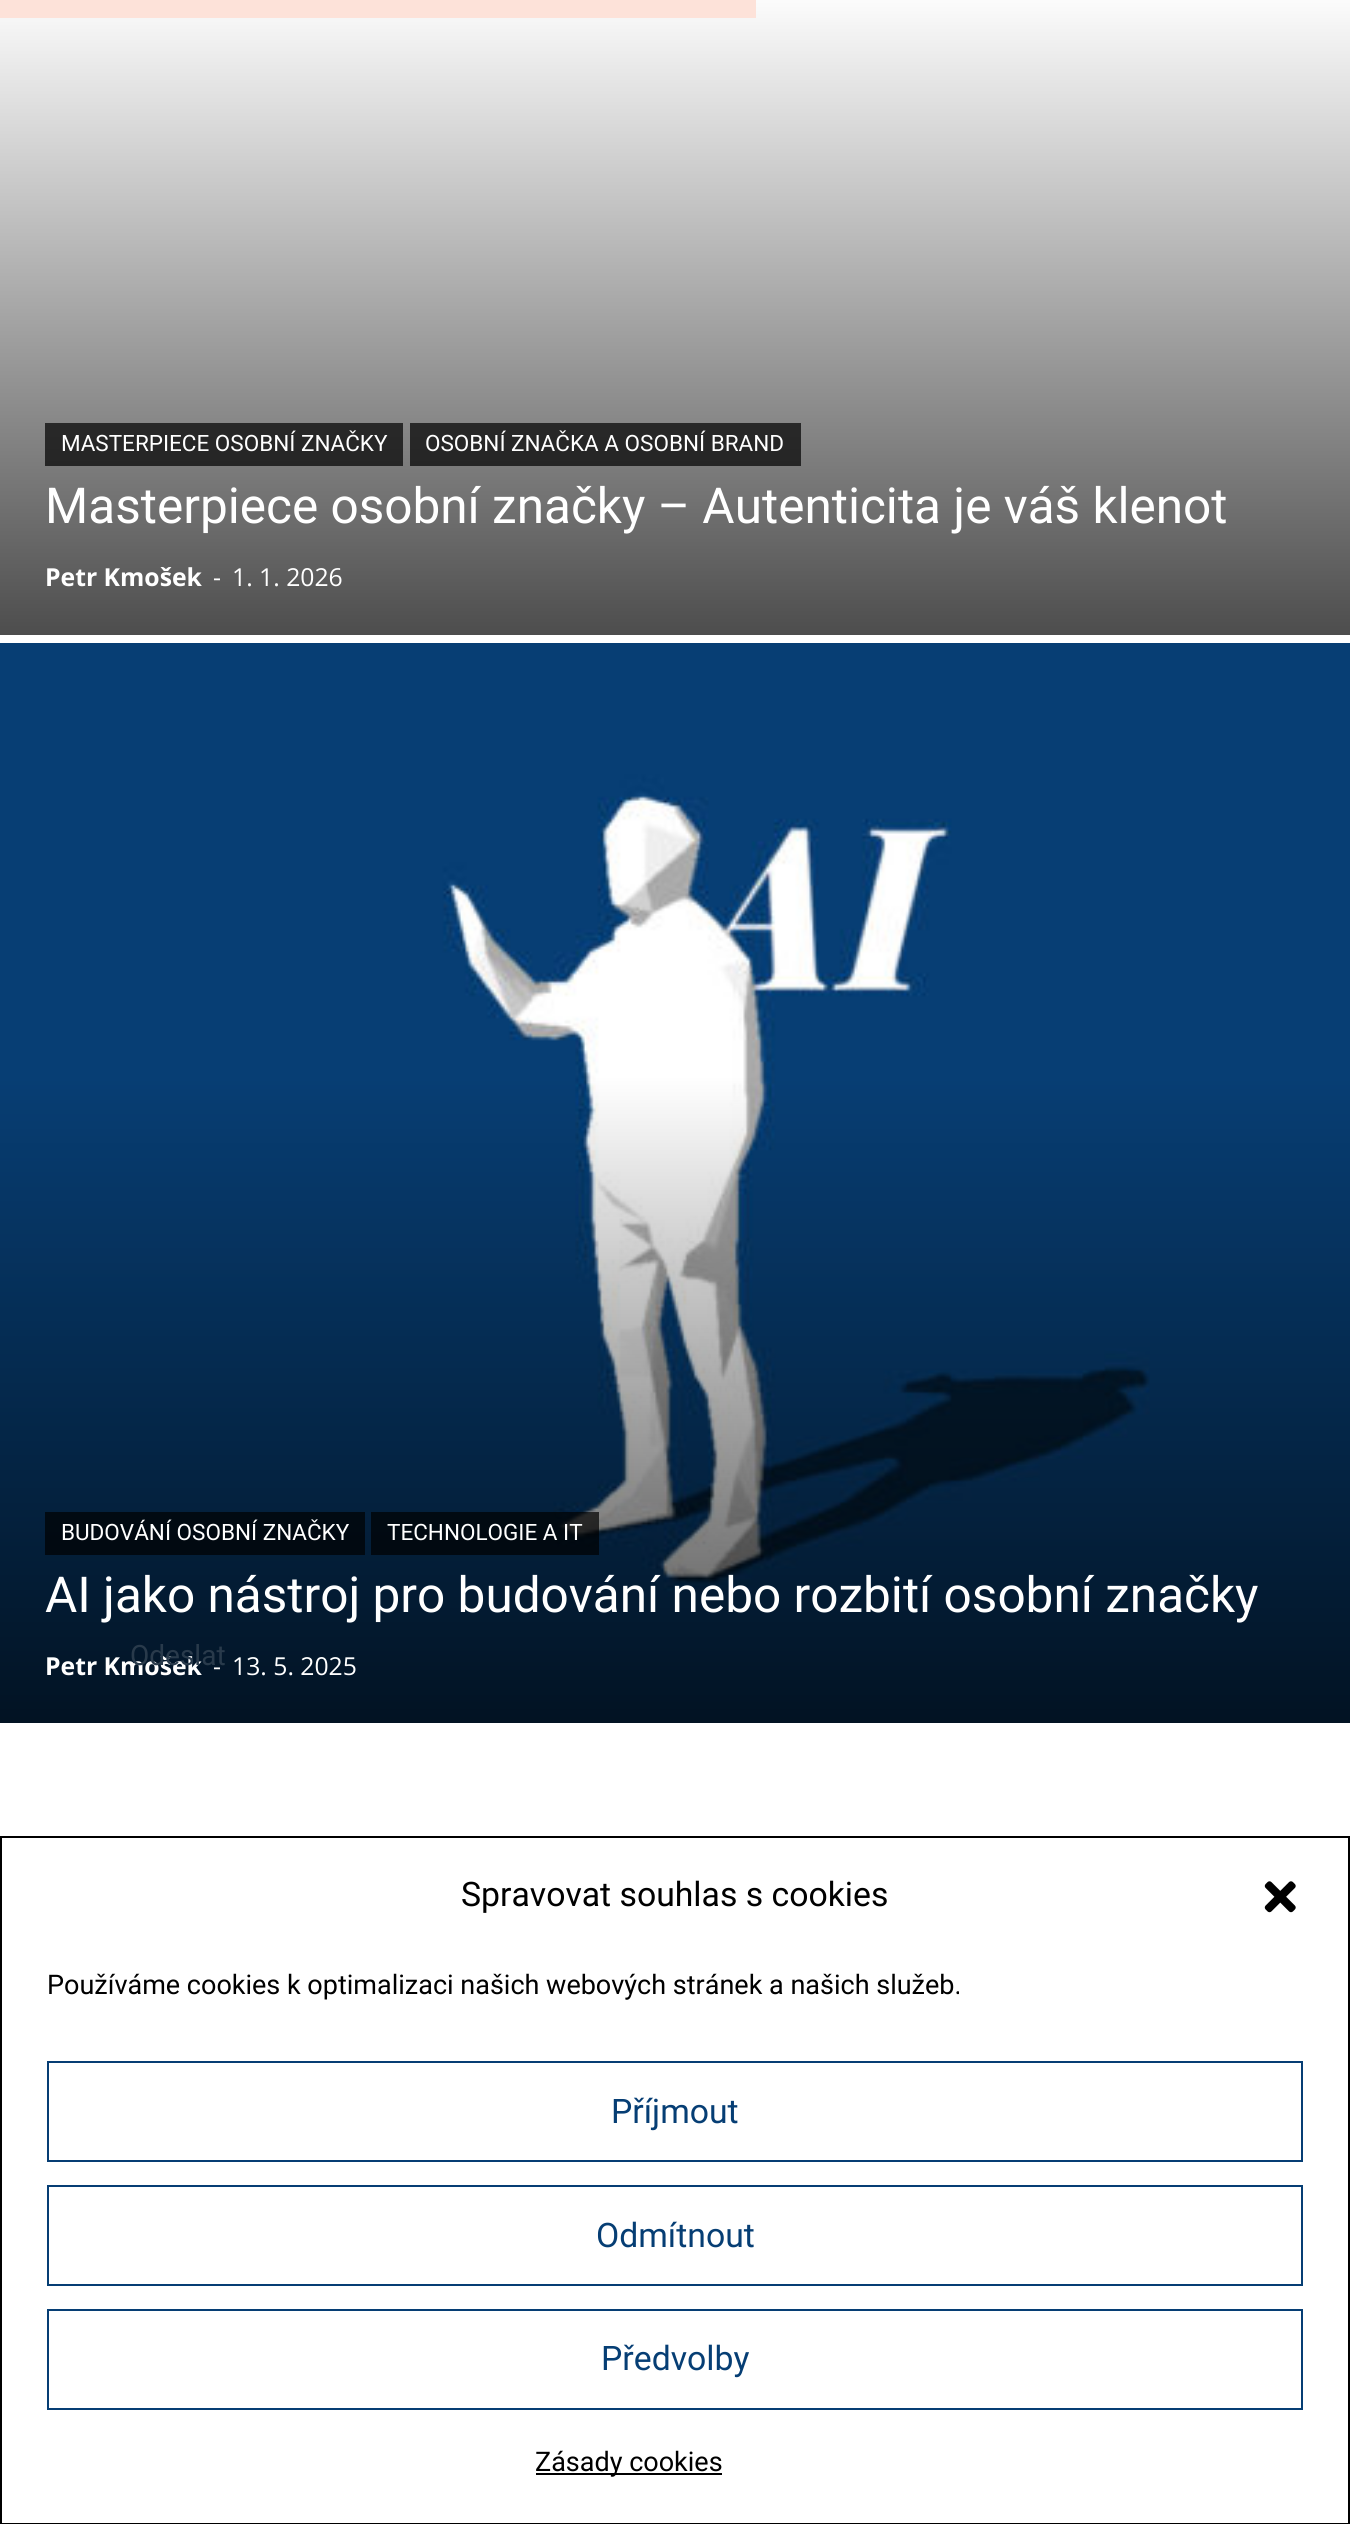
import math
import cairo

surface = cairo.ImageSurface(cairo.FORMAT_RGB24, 1350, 2524)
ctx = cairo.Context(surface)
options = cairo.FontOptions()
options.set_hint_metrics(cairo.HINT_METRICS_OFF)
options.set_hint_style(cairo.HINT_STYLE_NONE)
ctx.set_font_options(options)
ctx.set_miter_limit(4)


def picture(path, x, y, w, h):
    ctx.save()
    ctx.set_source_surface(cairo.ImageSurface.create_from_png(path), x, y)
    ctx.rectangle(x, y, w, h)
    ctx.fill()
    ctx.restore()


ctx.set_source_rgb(1, 1, 1)
ctx.paint()
gradient = cairo.LinearGradient(675, 635, 675, -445)
gradient.add_color_stop_rgba(0, 0.302, 0.302, 0.302, 1)
gradient.add_color_stop_rgba(0.6, 1, 1, 1, 1)
gradient.add_color_stop_rgba(1, 1, 1, 1, 1)
ctx.set_source(gradient)
ctx.rectangle(0, 0, 1350, 635)
ctx.fill()
ctx.set_source_rgb(0.992, 0.886, 0.851)
ctx.rectangle(0, 0, 756, 18)
ctx.fill()
gradient = cairo.LinearGradient(675, 635, 675, -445)
gradient.add_color_stop_rgba(0, 0.09, 0.09, 0.09, 1)
gradient.add_color_stop_rgba(0.6, 0.302, 0.302, 0.302, 1)
gradient.add_color_stop_rgba(1, 0.302, 0.302, 0.302, 1)
ctx.set_source(gradient)
ctx.rectangle(410, 423, 391, 43)
ctx.fill()
ctx.rectangle(45, 423, 358, 43)
ctx.fill()
ctx.select_font_face("Roboto")
ctx.set_font_size(22.5)
ctx.set_source_rgb(1, 1, 1)
ctx.move_to(61, 451)
ctx.show_text("MASTERPIECE OSOBNÍ ZNAČKY")
ctx.move_to(425, 451)
ctx.show_text("OSOBNÍ ZNAČKA A OSOBNÍ BRAND")
ctx.set_font_size(49.5)
ctx.move_to(45, 523)
ctx.show_text("Masterpiece osobní značky – Autenticita je váš klenot")
ctx.select_font_face("Open Sans", cairo.FONT_SLANT_NORMAL, cairo.FONT_WEIGHT_BOLD)
ctx.set_font_size(24.75)
ctx.move_to(45, 586)
ctx.show_text("Petr Kmošek")
ctx.select_font_face("Open Sans")
ctx.move_to(213, 586)
ctx.show_text("-")
ctx.move_to(232, 586)
ctx.show_text("1. 1. 2026")
picture("img1.png", 0, 643, 1350, 1080)
ctx.set_source_rgba(0, 0, 0, 0.7)
ctx.rectangle(45, 1512, 320, 43)
ctx.fill()
ctx.select_font_face("Roboto")
ctx.set_font_size(22.5)
ctx.set_source_rgb(1, 1, 1)
ctx.move_to(61, 1540)
ctx.show_text("BUDOVÁNÍ OSOBNÍ ZNAČKY")
ctx.set_source_rgba(0, 0, 0, 0.7)
ctx.rectangle(371, 1512, 228, 43)
ctx.fill()
ctx.set_source_rgb(1, 1, 1)
ctx.move_to(387, 1540)
ctx.show_text("TECHNOLOGIE A IT")
ctx.set_font_size(49.5)
ctx.move_to(45, 1612)
ctx.show_text("AI jako nástroj pro budování nebo rozbití osobní značky")
ctx.select_font_face("Open Sans", cairo.FONT_SLANT_NORMAL, cairo.FONT_WEIGHT_BOLD)
ctx.set_font_size(24.75)
ctx.move_to(45, 1675)
ctx.show_text("Petr Kmošek")
ctx.select_font_face("Open Sans")
ctx.move_to(213, 1675)
ctx.show_text("-")
ctx.move_to(232, 1675)
ctx.show_text("13. 5. 2025")
ctx.select_font_face("Roboto")
ctx.set_font_size(28)
ctx.set_source_rgb(0.161, 0.227, 0.294)
ctx.move_to(130, 1665)
ctx.show_text("Odeslat")
ctx.rectangle(1, 1837, 1348, 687)
ctx.set_source_rgb(0, 0, 0)
ctx.stroke()
ctx.set_font_size(33.75)
ctx.move_to(461, 1906)
ctx.show_text("Spravovat souhlas s cookies")
picture("img2.png", 1264, 1881, 32, 32)
ctx.set_font_size(27)
ctx.move_to(47, 1994)
ctx.show_text("Používáme cookies k optimalizaci našich webových stránek a našich služeb.")
ctx.rectangle(48, 2062, 1254, 99)
ctx.set_source_rgb(0.027, 0.243, 0.455)
ctx.stroke()
ctx.set_font_size(33.75)
ctx.move_to(611, 2123)
ctx.show_text("Příjmout")
ctx.rectangle(48, 2186, 1254, 99)
ctx.stroke()
ctx.move_to(596, 2247)
ctx.show_text("Odmítnout")
ctx.rectangle(48, 2310, 1254, 99)
ctx.stroke()
ctx.move_to(601, 2370)
ctx.show_text("Předvolby")
ctx.set_source_rgb(0, 0, 0)
ctx.rectangle(536, 2473, 186, 2)
ctx.fill()
ctx.set_font_size(27)
ctx.move_to(535, 2471)
ctx.show_text("Zásady cookies")
surface.write_to_png("page.png")
